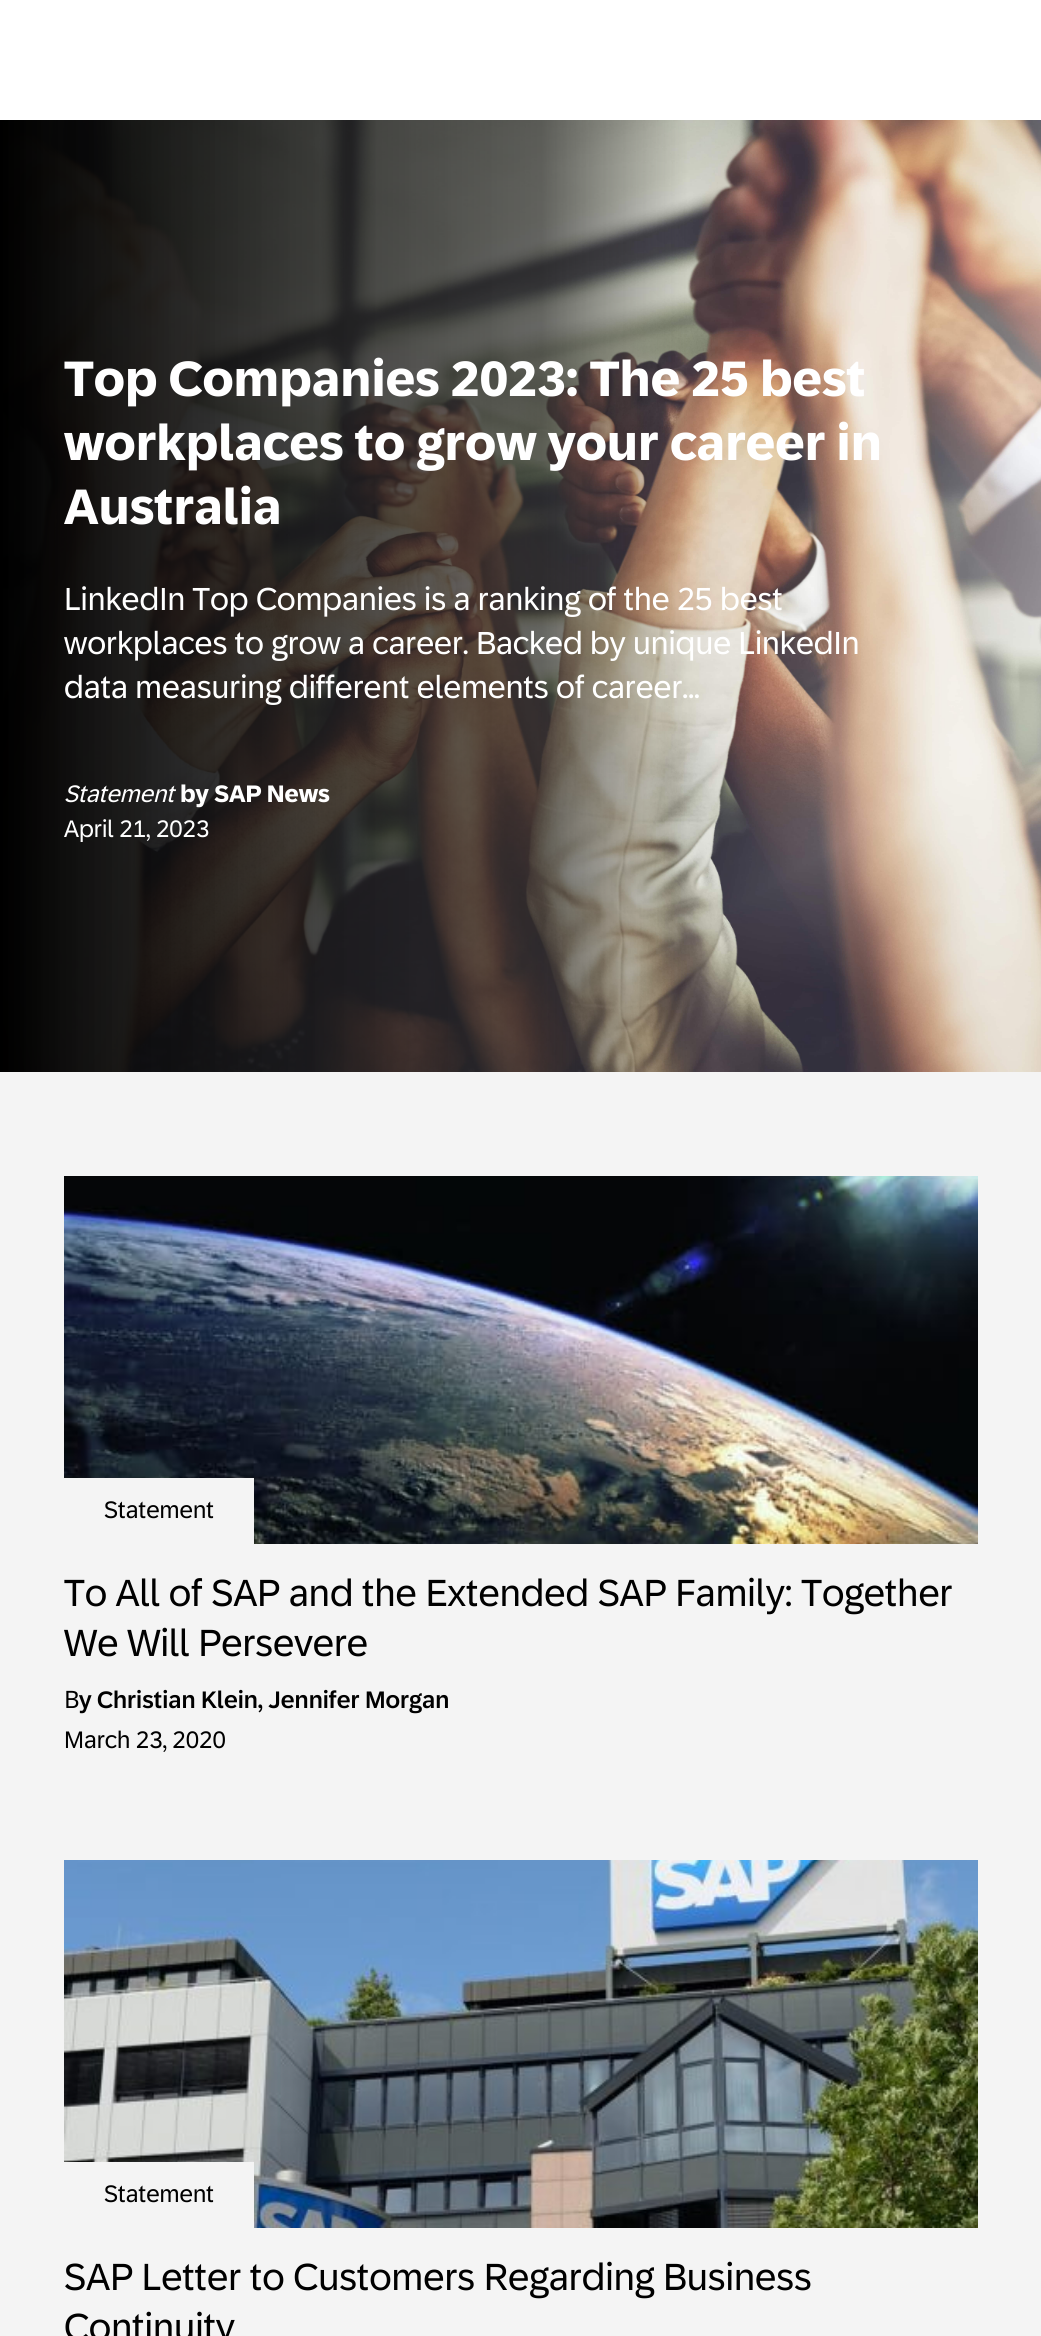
import math
import cairo

surface = cairo.ImageSurface(cairo.FORMAT_RGB24, 1041, 2336)
ctx = cairo.Context(surface)
options = cairo.FontOptions()
options.set_hint_metrics(cairo.HINT_METRICS_OFF)
options.set_hint_style(cairo.HINT_STYLE_NONE)
ctx.set_font_options(options)
ctx.set_miter_limit(4)


def picture(path, x, y, w, h):
    ctx.save()
    ctx.set_source_surface(cairo.ImageSurface.create_from_png(path), x, y)
    ctx.rectangle(x, y, w, h)
    ctx.fill()
    ctx.restore()


ctx.set_source_rgb(1, 1, 1)
ctx.paint()
ctx.set_source_rgb(0.957, 0.957, 0.957)
ctx.rectangle(0, 1072, 1041, 1264)
ctx.fill()
picture("img1.png", 0, 120, 1041, 952)
ctx.select_font_face("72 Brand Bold", cairo.FONT_SLANT_NORMAL, cairo.FONT_WEIGHT_BOLD)
ctx.set_font_size(50)
ctx.set_source_rgb(1, 1, 1)
ctx.move_to(64, 396)
ctx.show_text("Top Companies 2023: The 25 best")
ctx.move_to(64, 460)
ctx.show_text("workplaces to grow your career in")
ctx.move_to(64, 524)
ctx.show_text("Australia")
ctx.select_font_face("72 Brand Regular")
ctx.set_font_size(32)
ctx.move_to(64, 610)
ctx.show_text("LinkedIn Top Companies is a ranking of the 25 best")
ctx.move_to(64, 654)
ctx.show_text("workplaces to grow a career. Backed by unique LinkedIn")
ctx.move_to(64, 698)
ctx.show_text("data measuring different elements of career...")
ctx.select_font_face("72 Brand Bold", cairo.FONT_SLANT_NORMAL, cairo.FONT_WEIGHT_BOLD)
ctx.set_font_size(24)
ctx.move_to(180, 802)
ctx.show_text("by SAP News")
ctx.select_font_face("72 Brand Regular")
ctx.move_to(64, 837)
ctx.show_text("April 21, 2023")
ctx.select_font_face("72 Brand Regular", cairo.FONT_SLANT_ITALIC)
ctx.move_to(64, 802)
ctx.show_text("Statement")
picture("img2.png", 64, 1176, 914, 368)
ctx.set_source_rgb(0.957, 0.957, 0.957)
ctx.rectangle(64, 1478, 190, 66)
ctx.fill()
ctx.select_font_face("72 Brand Regular")
ctx.set_source_rgb(0, 0, 0)
ctx.move_to(104, 1518)
ctx.show_text("Statement")
ctx.set_font_size(38)
ctx.move_to(64, 1606)
ctx.show_text("To All of SAP and the Extended SAP Family: Together")
ctx.move_to(64, 1656)
ctx.show_text("We Will Persevere")
ctx.select_font_face("Noto Sans")
ctx.set_font_size(24)
ctx.move_to(64, 1708)
ctx.show_text("B")
ctx.select_font_face("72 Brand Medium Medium")
ctx.move_to(79, 1708)
ctx.show_text("y Christian Klein, Jennifer Morgan")
ctx.select_font_face("72 Brand Regular")
ctx.move_to(64, 1748)
ctx.show_text("March 23, 2020")
picture("img3.png", 64, 1860, 914, 368)
ctx.set_source_rgb(0.957, 0.957, 0.957)
ctx.rectangle(64, 2162, 190, 66)
ctx.fill()
ctx.set_source_rgb(0, 0, 0)
ctx.move_to(104, 2202)
ctx.show_text("Statement")
ctx.set_font_size(38)
ctx.move_to(64, 2290)
ctx.show_text("SAP Letter to Customers Regarding Business")
ctx.move_to(64, 2340)
ctx.show_text("Continuity")
surface.write_to_png("page.png")
